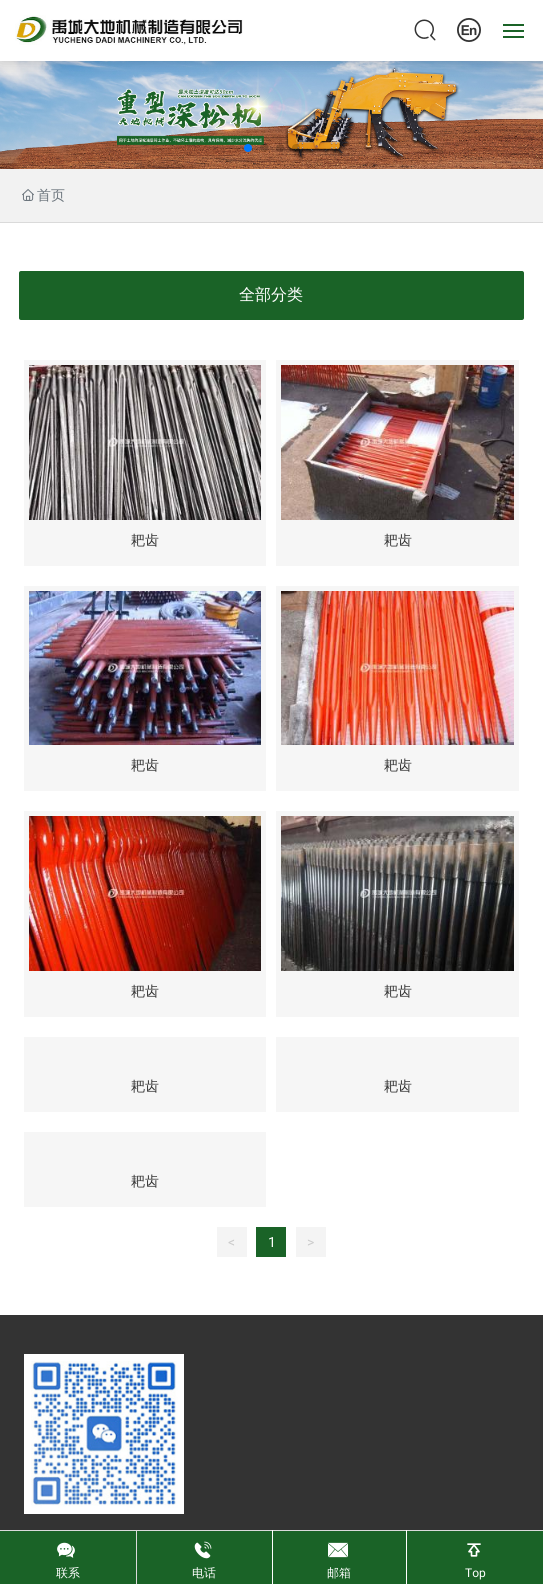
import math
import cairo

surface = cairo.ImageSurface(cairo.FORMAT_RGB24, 543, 1584)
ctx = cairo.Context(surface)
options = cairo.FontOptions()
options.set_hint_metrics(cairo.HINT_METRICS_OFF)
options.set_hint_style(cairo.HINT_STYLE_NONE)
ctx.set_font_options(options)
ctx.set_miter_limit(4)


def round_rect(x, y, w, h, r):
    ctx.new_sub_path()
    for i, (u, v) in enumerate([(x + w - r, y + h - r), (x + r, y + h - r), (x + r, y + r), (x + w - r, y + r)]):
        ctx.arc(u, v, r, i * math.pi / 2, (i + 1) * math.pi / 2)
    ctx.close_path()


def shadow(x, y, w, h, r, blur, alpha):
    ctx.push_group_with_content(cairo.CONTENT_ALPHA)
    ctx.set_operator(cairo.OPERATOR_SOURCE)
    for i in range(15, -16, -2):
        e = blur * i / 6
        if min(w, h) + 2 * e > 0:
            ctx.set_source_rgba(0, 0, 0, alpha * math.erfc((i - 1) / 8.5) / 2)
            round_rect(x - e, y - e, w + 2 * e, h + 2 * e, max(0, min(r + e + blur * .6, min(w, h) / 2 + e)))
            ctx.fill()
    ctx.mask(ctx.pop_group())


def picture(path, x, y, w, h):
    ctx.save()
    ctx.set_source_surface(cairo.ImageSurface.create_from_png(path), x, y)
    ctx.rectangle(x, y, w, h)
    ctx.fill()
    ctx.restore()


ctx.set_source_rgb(1, 1, 1)
ctx.paint()
picture("img4.png", 0, 61, 543, 108)
ctx.set_source_rgb(0, 0, 0)
shadow(0, 0, 543, 61, 0, 7.5, 0.2)
ctx.set_source_rgb(1, 1, 1)
ctx.rectangle(0, 0, 543, 61)
ctx.fill()
picture("img1.png", 15, 15, 228, 30)
picture("img2.png", 414, 19, 22, 22)
picture("img3.png", 457, 18, 24, 24)
ctx.set_source_rgb(0.102, 0.388, 0.153)
ctx.rectangle(503, 24, 21, 2)
ctx.fill()
ctx.rectangle(503, 30, 21, 2)
ctx.fill()
ctx.rectangle(503, 36, 21, 2)
ctx.fill()
ctx.set_source_rgb(0, 0.478, 1)
ctx.arc(248, 148, 4, 0, 2 * math.pi)
ctx.fill()
ctx.set_source_rgba(0, 0, 0, 0.2)
ctx.arc(264, 148, 4, 0, 2 * math.pi)
ctx.fill()
ctx.arc(280, 148, 4, 0, 2 * math.pi)
ctx.fill()
ctx.arc(296, 148, 4, 0, 2 * math.pi)
ctx.fill()
ctx.set_source_rgb(0.949, 0.949, 0.949)
ctx.rectangle(0, 169, 543, 53)
ctx.fill()
ctx.set_source_rgb(0.855, 0.855, 0.855)
ctx.rectangle(0, 222, 543, 1)
ctx.fill()
picture("img5.png", 22, 189, 12, 12)
ctx.select_font_face("WenQuanYi Zen Hei Medium")
ctx.set_font_size(14)
ctx.set_source_rgb(0.424, 0.459, 0.49)
ctx.move_to(37, 200)
ctx.show_text("首页")
ctx.set_source_rgb(0.102, 0.388, 0.153)
round_rect(19, 271, 505, 49, 2)
ctx.fill()
ctx.set_font_size(16)
ctx.set_source_rgb(1, 1, 1)
ctx.move_to(239, 300)
ctx.show_text("全部分类")
ctx.set_source_rgb(0.961, 0.961, 0.961)
ctx.rectangle(24, 360, 242, 206)
ctx.fill()
picture("img6.png", 29, 365, 232, 155)
ctx.set_font_size(14)
ctx.set_source_rgb(0.2, 0.2, 0.2)
ctx.move_to(131, 545)
ctx.show_text("耙齿")
ctx.set_source_rgb(0.961, 0.961, 0.961)
ctx.rectangle(276, 360, 243, 206)
ctx.fill()
picture("img7.png", 281, 365, 233, 155)
ctx.set_source_rgb(0.2, 0.2, 0.2)
ctx.move_to(384, 545)
ctx.show_text("耙齿")
ctx.set_source_rgb(0.961, 0.961, 0.961)
ctx.rectangle(24, 586, 242, 205)
ctx.fill()
picture("img8.png", 29, 591, 232, 154)
ctx.set_source_rgb(0.2, 0.2, 0.2)
ctx.move_to(131, 770)
ctx.show_text("耙齿")
ctx.set_source_rgb(0.961, 0.961, 0.961)
ctx.rectangle(276, 586, 243, 205)
ctx.fill()
picture("img9.png", 281, 591, 233, 154)
ctx.set_source_rgb(0.2, 0.2, 0.2)
ctx.move_to(384, 770)
ctx.show_text("耙齿")
ctx.set_source_rgb(0.961, 0.961, 0.961)
ctx.rectangle(24, 811, 242, 206)
ctx.fill()
picture("img10.png", 29, 816, 232, 155)
ctx.set_source_rgb(0.2, 0.2, 0.2)
ctx.move_to(131, 996)
ctx.show_text("耙齿")
ctx.set_source_rgb(0.961, 0.961, 0.961)
ctx.rectangle(276, 811, 243, 206)
ctx.fill()
picture("img11.png", 281, 816, 233, 155)
ctx.set_source_rgb(0.2, 0.2, 0.2)
ctx.move_to(384, 996)
ctx.show_text("耙齿")
ctx.set_source_rgb(0.961, 0.961, 0.961)
ctx.rectangle(24, 1037, 242, 75)
ctx.fill()
ctx.set_source_rgb(0.2, 0.2, 0.2)
ctx.move_to(131, 1091)
ctx.show_text("耙齿")
ctx.set_source_rgb(0.961, 0.961, 0.961)
ctx.rectangle(276, 1037, 243, 75)
ctx.fill()
ctx.set_source_rgb(0.2, 0.2, 0.2)
ctx.move_to(384, 1091)
ctx.show_text("耙齿")
ctx.set_source_rgb(0.961, 0.961, 0.961)
ctx.rectangle(24, 1132, 242, 75)
ctx.fill()
ctx.set_source_rgb(0.2, 0.2, 0.2)
ctx.move_to(131, 1186)
ctx.show_text("耙齿")
ctx.set_source_rgb(0.957, 0.957, 0.957)
ctx.rectangle(217, 1227, 30, 30)
ctx.fill()
ctx.select_font_face("Roboto")
ctx.set_source_rgb(0.8, 0.8, 0.8)
ctx.move_to(228, 1247)
ctx.show_text("<")
ctx.set_source_rgb(0.102, 0.388, 0.153)
ctx.rectangle(256, 1227, 30, 30)
ctx.fill()
ctx.set_source_rgb(1, 1, 1)
ctx.move_to(268, 1247)
ctx.show_text("1")
ctx.set_source_rgb(0.957, 0.957, 0.957)
ctx.rectangle(296, 1227, 30, 30)
ctx.fill()
ctx.set_source_rgb(0.8, 0.8, 0.8)
ctx.move_to(307, 1247)
ctx.show_text(">")
ctx.set_source_rgb(0.2, 0.2, 0.2)
ctx.rectangle(0, 1315, 543, 215)
ctx.fill()
picture("img12.png", 24, 1354, 160, 160)
ctx.set_source_rgb(0.102, 0.388, 0.153)
ctx.rectangle(0, 1531, 136, 53)
ctx.fill()
ctx.set_source_rgb(0.859, 0.859, 0.859)
ctx.rectangle(0, 1530, 543, 1)
ctx.fill()
picture("img13.png", 57, 1542, 18, 16)
ctx.select_font_face("WenQuanYi Zen Hei Medium")
ctx.set_font_size(12)
ctx.set_source_rgb(1, 1, 1)
ctx.move_to(56, 1577)
ctx.show_text("联系")
ctx.set_source_rgb(0.102, 0.388, 0.153)
ctx.rectangle(137, 1531, 135, 53)
ctx.fill()
ctx.set_source_rgb(0.859, 0.859, 0.859)
ctx.rectangle(136, 1530, 1, 54)
ctx.fill()
picture("img14.png", 194, 1541, 18, 18)
ctx.set_source_rgb(1, 1, 1)
ctx.move_to(192, 1577)
ctx.show_text("电话")
ctx.set_source_rgb(0.102, 0.388, 0.153)
ctx.rectangle(273, 1531, 133, 53)
ctx.fill()
ctx.set_source_rgb(1, 1, 1)
ctx.rectangle(406, 1530, 1, 1)
ctx.fill()
ctx.rectangle(272, 1530, 1, 1)
ctx.fill()
picture("img15.png", 328, 1542, 20, 16)
ctx.move_to(327, 1577)
ctx.show_text("邮箱")
ctx.set_source_rgb(0.102, 0.388, 0.153)
ctx.rectangle(407, 1531, 136, 53)
ctx.fill()
picture("img16.png", 467, 1543, 14, 14)
ctx.select_font_face("Roboto")
ctx.set_source_rgb(1, 1, 1)
ctx.move_to(465, 1577)
ctx.show_text("Top")
surface.write_to_png("page.png")
